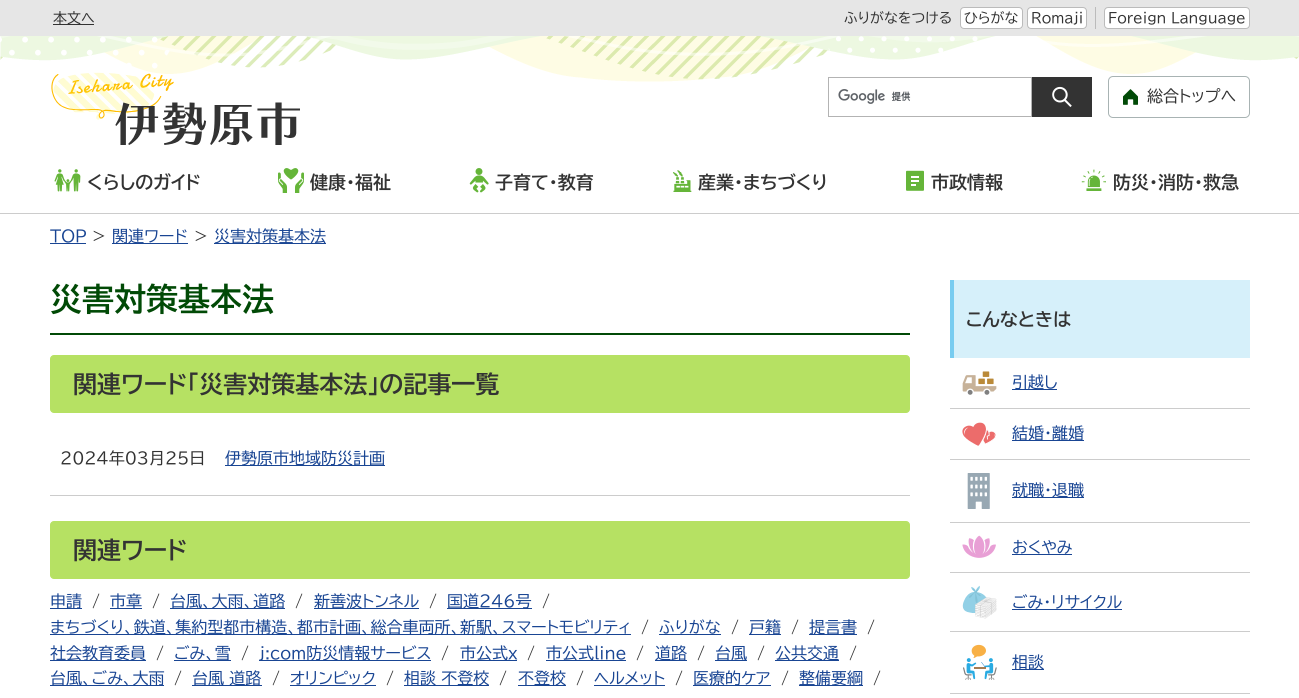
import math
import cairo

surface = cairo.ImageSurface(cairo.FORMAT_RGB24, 1299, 698)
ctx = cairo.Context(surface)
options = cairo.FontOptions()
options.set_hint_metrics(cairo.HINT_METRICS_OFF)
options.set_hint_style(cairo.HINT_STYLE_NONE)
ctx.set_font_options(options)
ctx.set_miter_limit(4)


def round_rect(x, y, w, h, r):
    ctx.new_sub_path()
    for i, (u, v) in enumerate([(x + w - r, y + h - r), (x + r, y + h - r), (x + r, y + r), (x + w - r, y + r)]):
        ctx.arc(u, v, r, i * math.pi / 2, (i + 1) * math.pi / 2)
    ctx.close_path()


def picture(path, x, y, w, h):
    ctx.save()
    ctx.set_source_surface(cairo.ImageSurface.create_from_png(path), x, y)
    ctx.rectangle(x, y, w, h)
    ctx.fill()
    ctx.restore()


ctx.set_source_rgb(1, 1, 1)
ctx.paint()
ctx.set_source_rgb(0.902, 0.902, 0.902)
ctx.rectangle(0, 0, 1299, 36)
ctx.fill()
ctx.set_source_rgb(0.2, 0.2, 0.2)
ctx.rectangle(53, 24, 41, 1)
ctx.fill()
ctx.select_font_face("BIZ UDPGothic")
ctx.set_font_size(14)
ctx.move_to(53, 23)
ctx.show_text("本文へ")
ctx.move_to(844, 23)
ctx.show_text("ふりがなをつける")
ctx.set_source_rgb(1, 1, 1)
round_rect(960.5, 7.5, 62, 21, 3.5)
ctx.fill_preserve()
ctx.set_source_rgb(0.733, 0.733, 0.733)
ctx.set_line_width(1)
ctx.stroke()
ctx.set_source_rgb(0.2, 0.2, 0.2)
ctx.move_to(964, 23)
ctx.show_text("ひらがな")
ctx.set_source_rgb(1, 1, 1)
round_rect(1027.5, 7.5, 59, 21, 3.5)
ctx.fill_preserve()
ctx.set_source_rgb(0.733, 0.733, 0.733)
ctx.stroke()
ctx.set_source_rgb(0.2, 0.2, 0.2)
ctx.move_to(1031, 23)
ctx.show_text("Romaji")
ctx.set_source_rgb(0.733, 0.733, 0.733)
ctx.rectangle(1095, 7, 1, 22)
ctx.fill()
ctx.set_source_rgb(1, 1, 1)
round_rect(1104.5, 7.5, 145, 21, 3.5)
ctx.fill_preserve()
ctx.set_source_rgb(0.733, 0.733, 0.733)
ctx.stroke()
ctx.set_source_rgb(0.2, 0.2, 0.2)
ctx.move_to(1108, 23)
ctx.show_text("Foreign Language")
picture("img1.png", 0, 36, 1299, 46)
picture("img2.png", 51, 72, 249, 73)
picture("img3.png", 838, 89, 73, 15)
ctx.rectangle(828.5, 77.5, 203, 39)
ctx.set_source_rgb(0.702, 0.702, 0.702)
ctx.stroke()
ctx.set_source_rgb(0.2, 0.2, 0.2)
ctx.rectangle(1032, 77, 60, 40)
ctx.fill()
picture("img4.png", 1052, 86, 20, 21)
picture("img5.png", 1123, 89, 15, 16)
round_rect(1108.5, 76.5, 141, 41, 4.5)
ctx.set_source_rgb(0.659, 0.702, 0.702)
ctx.stroke()
ctx.set_font_size(16)
ctx.set_source_rgb(0.2, 0.2, 0.2)
ctx.move_to(1147, 102)
ctx.show_text("総合トップへ")
ctx.set_source_rgb(0.8, 0.8, 0.8)
ctx.rectangle(0, 213, 1299, 1)
ctx.fill()
picture("img6.png", 54, 169, 27, 23)
ctx.select_font_face("BIZ UDPGothic", cairo.FONT_SLANT_NORMAL, cairo.FONT_WEIGHT_BOLD)
ctx.set_font_size(18)
ctx.set_source_rgb(0.2, 0.2, 0.2)
ctx.move_to(87, 189)
ctx.show_text("くらしのガイド")
picture("img7.png", 278, 168, 26, 25)
ctx.move_to(310, 189)
ctx.show_text("健康・福祉")
picture("img8.png", 469, 168, 20, 25)
ctx.move_to(495, 189)
ctx.show_text("子育て・教育")
picture("img9.png", 673, 170, 19, 22)
ctx.move_to(698, 189)
ctx.show_text("産業・まちづくり")
picture("img10.png", 906, 170, 18, 21)
ctx.move_to(931, 189)
ctx.show_text("市政情報")
picture("img11.png", 1081, 169, 25, 22)
ctx.move_to(1113, 189)
ctx.show_text("防災・消防・救急")
ctx.select_font_face("BIZ UDPGothic")
ctx.set_font_size(16)
ctx.set_source_rgb(0.098, 0.271, 0.576)
ctx.move_to(50, 242)
ctx.show_text("TOP")
ctx.rectangle(50, 243, 36, 1)
ctx.fill()
ctx.set_source_rgb(0.2, 0.2, 0.2)
ctx.move_to(91, 242)
ctx.show_text("＞")
ctx.set_source_rgb(0.098, 0.271, 0.576)
ctx.rectangle(112, 243, 76, 1)
ctx.fill()
ctx.move_to(112, 242)
ctx.show_text("関連ワード")
ctx.set_source_rgb(0.2, 0.2, 0.2)
ctx.move_to(193, 242)
ctx.show_text("＞")
ctx.set_source_rgb(0.098, 0.271, 0.576)
ctx.rectangle(214, 243, 112, 1)
ctx.fill()
ctx.move_to(214, 242)
ctx.show_text("災害対策基本法")
ctx.set_source_rgb(0.004, 0.29, 0.027)
ctx.rectangle(50, 333, 860, 2)
ctx.fill()
ctx.select_font_face("BIZ UDPGothic", cairo.FONT_SLANT_NORMAL, cairo.FONT_WEIGHT_BOLD)
ctx.set_font_size(32)
ctx.move_to(50, 311)
ctx.show_text("災害対策基本法")
ctx.set_source_rgb(0.714, 0.882, 0.388)
round_rect(50.5, 355.5, 859, 57, 3.5)
ctx.fill_preserve()
ctx.stroke()
ctx.set_font_size(24)
ctx.set_source_rgb(0.2, 0.2, 0.2)
ctx.move_to(73, 393)
ctx.show_text("関連ワード「災害対策基本法」の記事一覧")
ctx.set_source_rgb(0.8, 0.8, 0.8)
ctx.rectangle(50, 495, 860, 1)
ctx.fill()
ctx.select_font_face("BIZ UDPGothic")
ctx.set_font_size(16)
ctx.set_source_rgb(0.2, 0.2, 0.2)
ctx.move_to(60, 464)
ctx.show_text("2024年03月25日")
ctx.set_source_rgb(0.098, 0.271, 0.576)
ctx.rectangle(225, 465, 160, 1)
ctx.fill()
ctx.move_to(225, 464)
ctx.show_text("伊勢原市地域防災計画")
ctx.set_source_rgb(0.714, 0.882, 0.388)
round_rect(50.5, 521.5, 859, 57, 3.5)
ctx.fill_preserve()
ctx.stroke()
ctx.select_font_face("BIZ UDPGothic", cairo.FONT_SLANT_NORMAL, cairo.FONT_WEIGHT_BOLD)
ctx.set_font_size(24)
ctx.set_source_rgb(0.2, 0.2, 0.2)
ctx.move_to(73, 559)
ctx.show_text("関連ワード")
ctx.set_source_rgb(0.098, 0.271, 0.576)
ctx.rectangle(50, 608, 32, 1)
ctx.fill()
ctx.select_font_face("BIZ UDPGothic")
ctx.set_font_size(16)
ctx.move_to(50, 607)
ctx.show_text("申請")
ctx.set_source_rgb(0.2, 0.2, 0.2)
ctx.move_to(92, 607)
ctx.show_text("/")
ctx.set_source_rgb(0.098, 0.271, 0.576)
ctx.rectangle(110, 608, 32, 1)
ctx.fill()
ctx.move_to(110, 607)
ctx.show_text("市章")
ctx.set_source_rgb(0.2, 0.2, 0.2)
ctx.move_to(152, 607)
ctx.show_text("/")
ctx.set_source_rgb(0.098, 0.271, 0.576)
ctx.rectangle(170, 608, 115, 1)
ctx.fill()
ctx.move_to(170, 607)
ctx.show_text("台風、大雨、道路")
ctx.set_source_rgb(0.2, 0.2, 0.2)
ctx.move_to(295, 607)
ctx.show_text("/")
ctx.set_source_rgb(0.098, 0.271, 0.576)
ctx.rectangle(314, 608, 105, 1)
ctx.fill()
ctx.move_to(314, 607)
ctx.show_text("新善波トンネル")
ctx.set_source_rgb(0.2, 0.2, 0.2)
ctx.move_to(429, 607)
ctx.show_text("/")
ctx.set_source_rgb(0.098, 0.271, 0.576)
ctx.rectangle(447, 608, 85, 1)
ctx.fill()
ctx.move_to(447, 607)
ctx.show_text("国道246号")
ctx.set_source_rgb(0.2, 0.2, 0.2)
ctx.move_to(542, 607)
ctx.show_text("/")
ctx.set_source_rgb(0.098, 0.271, 0.576)
ctx.rectangle(50, 634, 581, 1)
ctx.fill()
ctx.move_to(50, 633)
ctx.show_text("まちづくり、鉄道、集約型都市構造、都市計画、総合車両所、新駅、スマートモビリティ")
ctx.set_source_rgb(0.2, 0.2, 0.2)
ctx.move_to(641, 633)
ctx.show_text("/")
ctx.set_source_rgb(0.098, 0.271, 0.576)
ctx.move_to(659, 633)
ctx.show_text("ふりがな")
ctx.rectangle(659, 634, 62, 1)
ctx.fill()
ctx.set_source_rgb(0.2, 0.2, 0.2)
ctx.move_to(731, 633)
ctx.show_text("/")
ctx.set_source_rgb(0.098, 0.271, 0.576)
ctx.rectangle(749, 634, 32, 1)
ctx.fill()
ctx.move_to(749, 633)
ctx.show_text("戸籍")
ctx.set_source_rgb(0.2, 0.2, 0.2)
ctx.move_to(791, 633)
ctx.show_text("/")
ctx.set_source_rgb(0.098, 0.271, 0.576)
ctx.rectangle(809, 634, 48, 1)
ctx.fill()
ctx.move_to(809, 633)
ctx.show_text("提言書")
ctx.set_source_rgb(0.2, 0.2, 0.2)
ctx.move_to(867, 633)
ctx.show_text("/")
ctx.set_source_rgb(0.098, 0.271, 0.576)
ctx.rectangle(50, 660, 96, 1)
ctx.fill()
ctx.move_to(50, 659)
ctx.show_text("社会教育委員")
ctx.set_source_rgb(0.2, 0.2, 0.2)
ctx.move_to(156, 659)
ctx.show_text("/")
ctx.set_source_rgb(0.098, 0.271, 0.576)
ctx.rectangle(174, 660, 57, 1)
ctx.fill()
ctx.move_to(174, 659)
ctx.show_text("ごみ、雪")
ctx.set_source_rgb(0.2, 0.2, 0.2)
ctx.move_to(241, 659)
ctx.show_text("/")
ctx.set_source_rgb(0.098, 0.271, 0.576)
ctx.rectangle(259, 660, 172, 1)
ctx.fill()
ctx.move_to(259, 659)
ctx.show_text("j:com防災情報サービス")
ctx.set_source_rgb(0.2, 0.2, 0.2)
ctx.move_to(441, 659)
ctx.show_text("/")
ctx.set_source_rgb(0.098, 0.271, 0.576)
ctx.rectangle(460, 660, 57, 1)
ctx.fill()
ctx.move_to(460, 659)
ctx.show_text("市公式x")
ctx.set_source_rgb(0.2, 0.2, 0.2)
ctx.move_to(527, 659)
ctx.show_text("/")
ctx.set_source_rgb(0.098, 0.271, 0.576)
ctx.rectangle(546, 660, 80, 1)
ctx.fill()
ctx.move_to(546, 659)
ctx.show_text("市公式line")
ctx.set_source_rgb(0.2, 0.2, 0.2)
ctx.move_to(636, 659)
ctx.show_text("/")
ctx.set_source_rgb(0.098, 0.271, 0.576)
ctx.rectangle(655, 660, 32, 1)
ctx.fill()
ctx.move_to(655, 659)
ctx.show_text("道路")
ctx.set_source_rgb(0.2, 0.2, 0.2)
ctx.move_to(697, 659)
ctx.show_text("/")
ctx.set_source_rgb(0.098, 0.271, 0.576)
ctx.rectangle(715, 660, 32, 1)
ctx.fill()
ctx.move_to(715, 659)
ctx.show_text("台風")
ctx.set_source_rgb(0.2, 0.2, 0.2)
ctx.move_to(757, 659)
ctx.show_text("/")
ctx.set_source_rgb(0.098, 0.271, 0.576)
ctx.rectangle(775, 660, 64, 1)
ctx.fill()
ctx.move_to(775, 659)
ctx.show_text("公共交通")
ctx.set_source_rgb(0.2, 0.2, 0.2)
ctx.move_to(849, 659)
ctx.show_text("/")
ctx.set_source_rgb(0.098, 0.271, 0.576)
ctx.rectangle(50, 685, 114, 1)
ctx.fill()
ctx.move_to(50, 684)
ctx.show_text("台風、ごみ、大雨")
ctx.set_source_rgb(0.2, 0.2, 0.2)
ctx.move_to(174, 684)
ctx.show_text("/")
ctx.set_source_rgb(0.098, 0.271, 0.576)
ctx.rectangle(192, 685, 70, 1)
ctx.fill()
ctx.move_to(192, 684)
ctx.show_text("台風 道路")
ctx.set_source_rgb(0.2, 0.2, 0.2)
ctx.move_to(272, 684)
ctx.show_text("/")
ctx.set_source_rgb(0.098, 0.271, 0.576)
ctx.move_to(290, 684)
ctx.show_text("オリンピック")
ctx.rectangle(290, 685, 86, 1)
ctx.fill()
ctx.set_source_rgb(0.2, 0.2, 0.2)
ctx.move_to(386, 684)
ctx.show_text("/")
ctx.set_source_rgb(0.098, 0.271, 0.576)
ctx.rectangle(404, 685, 85, 1)
ctx.fill()
ctx.move_to(404, 684)
ctx.show_text("相談 不登校")
ctx.set_source_rgb(0.2, 0.2, 0.2)
ctx.move_to(499, 684)
ctx.show_text("/")
ctx.set_source_rgb(0.098, 0.271, 0.576)
ctx.rectangle(518, 685, 48, 1)
ctx.fill()
ctx.move_to(518, 684)
ctx.show_text("不登校")
ctx.set_source_rgb(0.2, 0.2, 0.2)
ctx.move_to(576, 684)
ctx.show_text("/")
ctx.set_source_rgb(0.098, 0.271, 0.576)
ctx.move_to(594, 684)
ctx.show_text("ヘルメット")
ctx.rectangle(594, 685, 71, 1)
ctx.fill()
ctx.set_source_rgb(0.2, 0.2, 0.2)
ctx.move_to(675, 684)
ctx.show_text("/")
ctx.set_source_rgb(0.098, 0.271, 0.576)
ctx.rectangle(693, 685, 78, 1)
ctx.fill()
ctx.move_to(693, 684)
ctx.show_text("医療的ケア")
ctx.set_source_rgb(0.2, 0.2, 0.2)
ctx.move_to(781, 684)
ctx.show_text("/")
ctx.set_source_rgb(0.098, 0.271, 0.576)
ctx.rectangle(799, 685, 64, 1)
ctx.fill()
ctx.move_to(799, 684)
ctx.show_text("整備要綱")
ctx.set_source_rgb(0.2, 0.2, 0.2)
ctx.move_to(873, 684)
ctx.show_text("/")
ctx.set_source_rgb(0.839, 0.941, 0.98)
ctx.rectangle(954, 280, 296, 78)
ctx.fill()
ctx.set_source_rgb(0.471, 0.8, 0.941)
ctx.rectangle(950, 280, 4, 78)
ctx.fill()
ctx.select_font_face("BIZ UDPGothic", cairo.FONT_SLANT_NORMAL, cairo.FONT_WEIGHT_BOLD)
ctx.set_font_size(18)
ctx.set_source_rgb(0.2, 0.2, 0.2)
ctx.move_to(966, 326)
ctx.show_text("こんなときは")
ctx.set_source_rgb(0.8, 0.8, 0.8)
ctx.rectangle(950, 408, 300, 1)
ctx.fill()
picture("img12.png", 962, 371, 35, 24)
ctx.set_source_rgb(0.098, 0.271, 0.576)
ctx.rectangle(1012, 389, 45, 1)
ctx.fill()
ctx.select_font_face("BIZ UDPGothic")
ctx.set_font_size(16)
ctx.move_to(1012, 388)
ctx.show_text("引越し")
ctx.set_source_rgb(0.8, 0.8, 0.8)
ctx.rectangle(950, 459, 300, 1)
ctx.fill()
picture("img13.png", 962, 422, 34, 24)
ctx.set_source_rgb(0.098, 0.271, 0.576)
ctx.rectangle(1012, 440, 72, 1)
ctx.fill()
ctx.move_to(1012, 439)
ctx.show_text("結婚・離婚")
ctx.set_source_rgb(0.8, 0.8, 0.8)
ctx.rectangle(950, 522, 300, 1)
ctx.fill()
picture("img14.png", 967, 473, 23, 36)
ctx.set_source_rgb(0.098, 0.271, 0.576)
ctx.rectangle(1012, 497, 72, 1)
ctx.fill()
ctx.move_to(1012, 496)
ctx.show_text("就職・退職")
ctx.set_source_rgb(0.8, 0.8, 0.8)
ctx.rectangle(950, 572, 300, 1)
ctx.fill()
picture("img15.png", 962, 535, 34, 23)
ctx.set_source_rgb(0.098, 0.271, 0.576)
ctx.move_to(1012, 553)
ctx.show_text("おくやみ")
ctx.rectangle(1012, 554, 60, 1)
ctx.fill()
ctx.set_source_rgb(0.8, 0.8, 0.8)
ctx.rectangle(950, 631, 300, 1)
ctx.fill()
picture("img16.png", 962, 585, 35, 34)
ctx.set_source_rgb(0.098, 0.271, 0.576)
ctx.move_to(1012, 608)
ctx.show_text("ごみ・リサイクル")
ctx.rectangle(1012, 609, 110, 1)
ctx.fill()
ctx.set_source_rgb(0.8, 0.8, 0.8)
ctx.rectangle(950, 693, 300, 1)
ctx.fill()
picture("img17.png", 963, 644, 34, 36)
ctx.set_source_rgb(0.098, 0.271, 0.576)
ctx.rectangle(1012, 669, 32, 1)
ctx.fill()
ctx.move_to(1012, 668)
ctx.show_text("相談")
surface.write_to_png("page.png")
